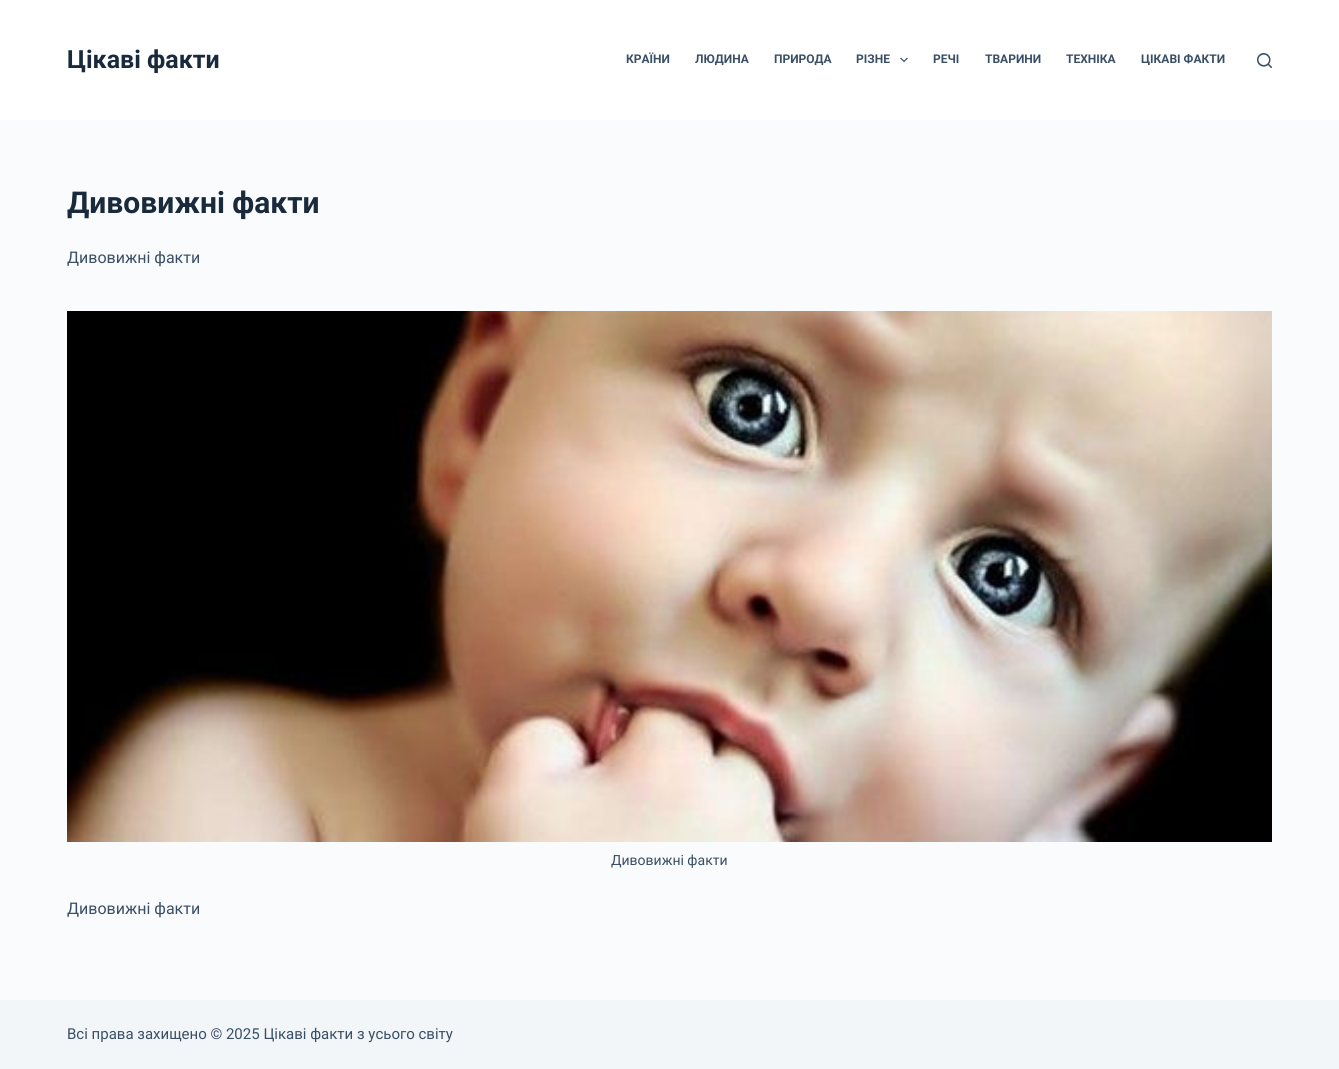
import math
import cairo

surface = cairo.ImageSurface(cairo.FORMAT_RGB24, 1339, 1069)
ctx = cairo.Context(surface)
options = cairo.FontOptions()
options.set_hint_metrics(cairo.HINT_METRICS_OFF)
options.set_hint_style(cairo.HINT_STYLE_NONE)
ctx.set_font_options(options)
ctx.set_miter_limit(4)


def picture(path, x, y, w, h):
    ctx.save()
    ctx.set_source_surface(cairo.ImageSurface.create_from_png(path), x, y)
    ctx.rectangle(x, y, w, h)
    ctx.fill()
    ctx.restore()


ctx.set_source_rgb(0.98, 0.984, 0.988)
ctx.paint()
ctx.set_source_rgb(1, 1, 1)
ctx.rectangle(0, 0, 1339, 120)
ctx.fill()
ctx.select_font_face("Roboto", cairo.FONT_SLANT_NORMAL, cairo.FONT_WEIGHT_BOLD)
ctx.set_font_size(25)
ctx.set_source_rgb(0.098, 0.165, 0.239)
ctx.move_to(67, 68)
ctx.show_text("Цікаві факти")
ctx.set_font_size(12)
ctx.set_source_rgb(0.227, 0.31, 0.4)
ctx.move_to(626, 63)
ctx.show_text("КРАЇНИ")
ctx.move_to(695, 63)
ctx.show_text("ЛЮДИНА")
ctx.move_to(774, 63)
ctx.show_text("ПРИРОДА")
ctx.move_to(856, 63)
ctx.show_text("РІЗНЕ")
picture("img1.png", 900, 57, 8, 6)
ctx.move_to(933, 63)
ctx.show_text("РЕЧІ")
ctx.move_to(985, 63)
ctx.show_text("ТВАРИНИ")
ctx.move_to(1066, 63)
ctx.show_text("ТЕХНІКА")
ctx.move_to(1141, 63)
ctx.show_text("ЦІКАВІ ФАКТИ")
picture("img2.png", 1257, 53, 15, 15)
ctx.set_font_size(30)
ctx.set_source_rgb(0.098, 0.165, 0.239)
ctx.move_to(67, 213)
ctx.show_text("Дивовижні факти")
ctx.select_font_face("Roboto")
ctx.set_font_size(16)
ctx.set_source_rgb(0.227, 0.31, 0.4)
ctx.move_to(67, 263)
ctx.show_text("Дивовижні факти")
picture("img3.png", 67, 311, 1205, 531)
ctx.set_font_size(14)
ctx.move_to(611, 865)
ctx.show_text("Дивовижні факти")
ctx.set_font_size(16)
ctx.move_to(67, 914)
ctx.show_text("Дивовижні факти")
ctx.set_source_rgb(0.949, 0.961, 0.969)
ctx.rectangle(0, 1000, 1339, 69)
ctx.fill()
ctx.set_font_size(15)
ctx.set_source_rgb(0.227, 0.31, 0.4)
ctx.move_to(67, 1039)
ctx.show_text("Всі права захищено © 2025 Цікаві факти з усього світу")
surface.write_to_png("page.png")
